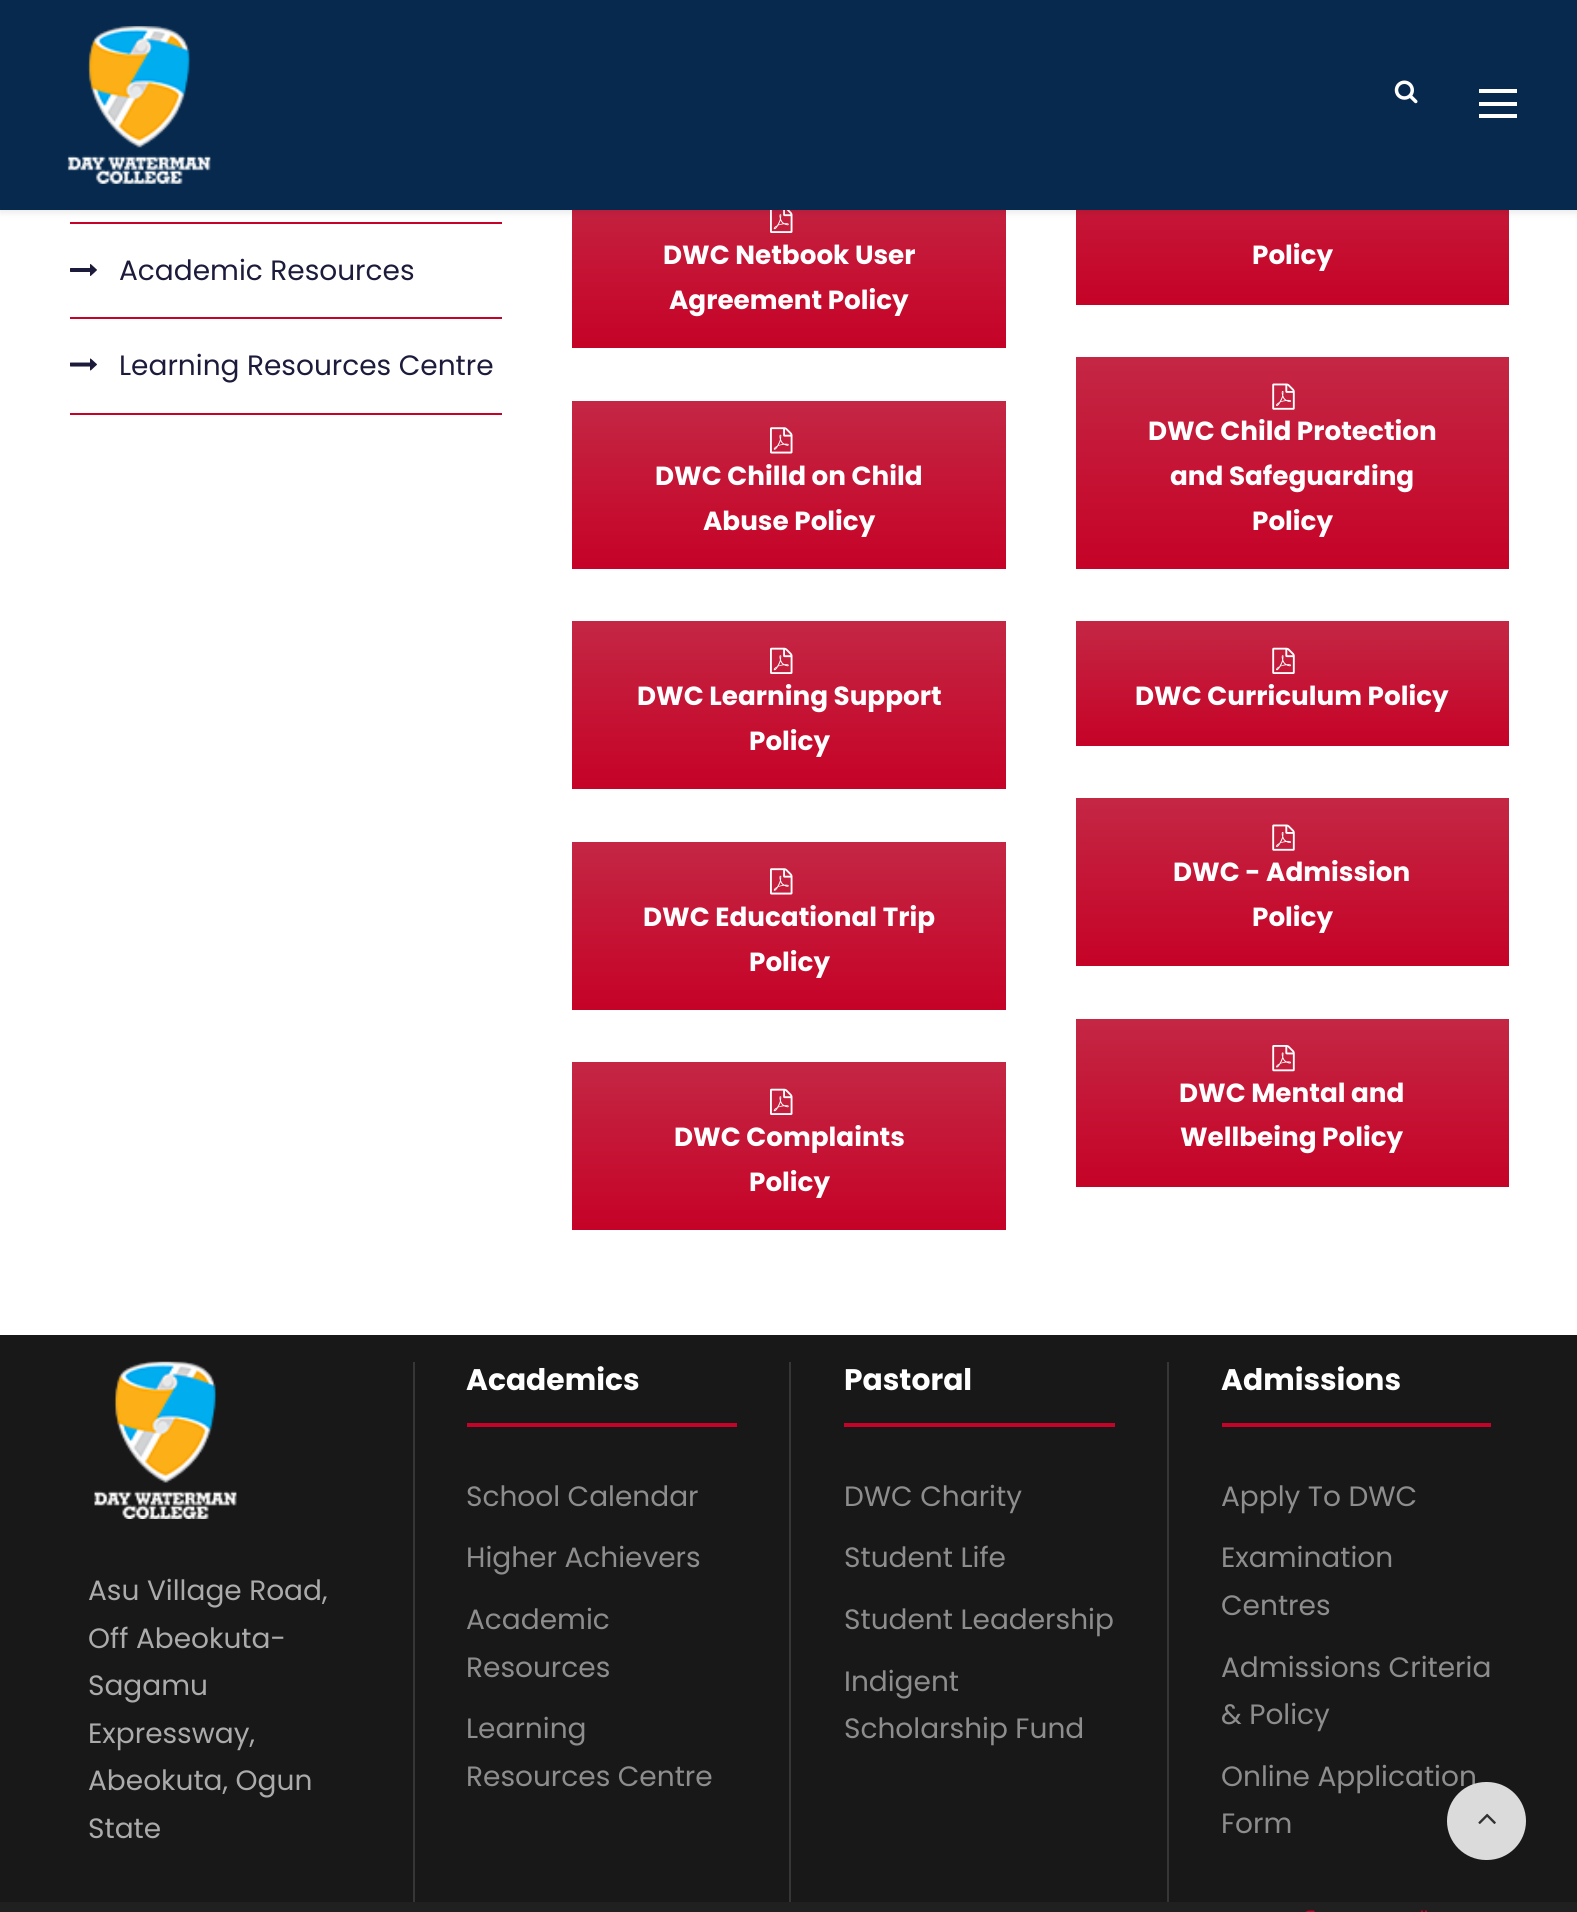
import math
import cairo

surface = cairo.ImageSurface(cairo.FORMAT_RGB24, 1577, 1912)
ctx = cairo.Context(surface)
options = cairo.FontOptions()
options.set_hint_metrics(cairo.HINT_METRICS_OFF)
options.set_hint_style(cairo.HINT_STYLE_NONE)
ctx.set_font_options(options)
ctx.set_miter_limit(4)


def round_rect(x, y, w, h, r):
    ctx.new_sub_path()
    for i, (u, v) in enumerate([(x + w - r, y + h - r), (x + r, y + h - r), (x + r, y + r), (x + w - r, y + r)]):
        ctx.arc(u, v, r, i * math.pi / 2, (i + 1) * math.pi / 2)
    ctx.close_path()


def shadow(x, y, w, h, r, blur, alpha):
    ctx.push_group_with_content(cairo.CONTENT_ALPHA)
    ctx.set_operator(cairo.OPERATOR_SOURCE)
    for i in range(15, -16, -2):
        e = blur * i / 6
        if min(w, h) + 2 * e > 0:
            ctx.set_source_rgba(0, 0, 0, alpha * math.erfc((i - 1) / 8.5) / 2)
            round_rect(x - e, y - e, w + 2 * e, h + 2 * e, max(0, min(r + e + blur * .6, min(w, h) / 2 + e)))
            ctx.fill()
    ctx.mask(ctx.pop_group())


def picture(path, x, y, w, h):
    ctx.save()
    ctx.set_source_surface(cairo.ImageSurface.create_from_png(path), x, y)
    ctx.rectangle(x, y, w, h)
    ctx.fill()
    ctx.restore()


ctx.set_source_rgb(1, 1, 1)
ctx.paint()
ctx.set_source_rgb(0.773, 0.008, 0.153)
ctx.rectangle(70, 222, 432, 2)
ctx.fill()
gradient = cairo.LinearGradient(789, 180, 789, 348)
gradient.add_color_stop_rgba(0, 0.769, 0.153, 0.267, 1)
gradient.add_color_stop_rgba(1, 0.773, 0.008, 0.153, 1)
ctx.set_source(gradient)
ctx.rectangle(572, 210, 434, 138)
ctx.fill()
picture("img5.png", 770, 210, 23, 23)
gradient = cairo.LinearGradient(1292, 136, 1292, 305)
gradient.add_color_stop_rgba(0, 0.769, 0.153, 0.267, 1)
gradient.add_color_stop_rgba(1, 0.773, 0.008, 0.153, 1)
ctx.set_source(gradient)
ctx.rectangle(1076, 210, 433, 95)
ctx.fill()
ctx.set_source_rgb(0, 0, 0)
shadow(0, 2, 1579, 210, 0, 3.5, 0.1)
ctx.set_source_rgb(0.027, 0.161, 0.302)
ctx.rectangle(0, 0, 1577, 210)
ctx.fill()
picture("img1.png", 67, 26, 144, 158)
picture("img2.png", 1394, 80, 24, 24)
ctx.set_source_rgb(1, 1, 1)
ctx.rectangle(1479, 89, 38, 4)
ctx.fill()
ctx.rectangle(1479, 102, 38, 4)
ctx.fill()
ctx.rectangle(1479, 114, 38, 4)
ctx.fill()
ctx.set_source_rgb(0.773, 0.008, 0.153)
ctx.rectangle(70, 317, 432, 2)
ctx.fill()
picture("img3.png", 70, 264, 27, 12)
ctx.select_font_face("Poppins")
ctx.set_font_size(28)
ctx.set_source_rgb(0.11, 0.106, 0.231)
ctx.move_to(119, 280)
ctx.show_text("Academic Resources")
ctx.set_source_rgb(0.773, 0.008, 0.153)
ctx.rectangle(70, 413, 432, 2)
ctx.fill()
picture("img4.png", 70, 358, 27, 13)
ctx.set_source_rgb(0.11, 0.106, 0.231)
ctx.move_to(119, 375)
ctx.show_text("Learning Resources Centre")
ctx.select_font_face("Poppins", cairo.FONT_SLANT_NORMAL, cairo.FONT_WEIGHT_BOLD)
ctx.set_font_size(26.25)
ctx.set_source_rgb(1, 1, 1)
ctx.move_to(663, 264)
ctx.show_text("DWC Netbook User")
ctx.move_to(669, 309)
ctx.show_text("Agreement Policy")
gradient = cairo.LinearGradient(789, 401, 789, 569)
gradient.add_color_stop_rgba(0, 0.769, 0.153, 0.267, 1)
gradient.add_color_stop_rgba(1, 0.773, 0.008, 0.153, 1)
ctx.set_source(gradient)
ctx.rectangle(572, 401, 434, 168)
ctx.fill()
picture("img6.png", 770, 427, 23, 27)
ctx.set_source_rgb(1, 1, 1)
ctx.move_to(655, 485)
ctx.show_text("DWC Chilld on Child")
ctx.move_to(703, 530)
ctx.show_text("Abuse Policy")
gradient = cairo.LinearGradient(789, 621, 789, 789)
gradient.add_color_stop_rgba(0, 0.769, 0.153, 0.267, 1)
gradient.add_color_stop_rgba(1, 0.773, 0.008, 0.153, 1)
ctx.set_source(gradient)
ctx.rectangle(572, 621, 434, 168)
ctx.fill()
picture("img7.png", 770, 647, 23, 27)
ctx.set_source_rgb(1, 1, 1)
ctx.move_to(637, 705)
ctx.show_text("DWC Learning Support")
ctx.move_to(749, 750)
ctx.show_text("Policy")
gradient = cairo.LinearGradient(789, 842, 789, 1010)
gradient.add_color_stop_rgba(0, 0.769, 0.153, 0.267, 1)
gradient.add_color_stop_rgba(1, 0.773, 0.008, 0.153, 1)
ctx.set_source(gradient)
ctx.rectangle(572, 842, 434, 168)
ctx.fill()
picture("img6.png", 770, 868, 23, 27)
ctx.set_source_rgb(1, 1, 1)
ctx.move_to(643, 926)
ctx.show_text("DWC Educational Trip")
ctx.move_to(749, 971)
ctx.show_text("Policy")
gradient = cairo.LinearGradient(789, 1062, 789, 1230)
gradient.add_color_stop_rgba(0, 0.769, 0.153, 0.267, 1)
gradient.add_color_stop_rgba(1, 0.773, 0.008, 0.153, 1)
ctx.set_source(gradient)
ctx.rectangle(572, 1062, 434, 168)
ctx.fill()
picture("img7.png", 770, 1088, 23, 27)
ctx.set_source_rgb(1, 1, 1)
ctx.move_to(674, 1146)
ctx.show_text("DWC Complaints")
ctx.move_to(749, 1191)
ctx.show_text("Policy")
ctx.move_to(1252, 264)
ctx.show_text("Policy")
gradient = cairo.LinearGradient(1292, 357, 1292, 569)
gradient.add_color_stop_rgba(0, 0.769, 0.153, 0.267, 1)
gradient.add_color_stop_rgba(1, 0.773, 0.008, 0.153, 1)
ctx.set_source(gradient)
ctx.rectangle(1076, 357, 433, 212)
ctx.fill()
picture("img8.png", 1272, 383, 23, 27)
ctx.set_source_rgb(1, 1, 1)
ctx.move_to(1148, 440)
ctx.show_text("DWC Child Protection")
ctx.move_to(1170, 485)
ctx.show_text("and Safeguarding")
ctx.move_to(1252, 530)
ctx.show_text("Policy")
gradient = cairo.LinearGradient(1292, 621, 1292, 746)
gradient.add_color_stop_rgba(0, 0.769, 0.153, 0.267, 1)
gradient.add_color_stop_rgba(1, 0.773, 0.008, 0.153, 1)
ctx.set_source(gradient)
ctx.rectangle(1076, 621, 433, 125)
ctx.fill()
picture("img9.png", 1272, 647, 23, 27)
ctx.set_source_rgb(1, 1, 1)
ctx.move_to(1135, 705)
ctx.show_text("DWC Curriculum Policy")
gradient = cairo.LinearGradient(1292, 798, 1292, 966)
gradient.add_color_stop_rgba(0, 0.769, 0.153, 0.267, 1)
gradient.add_color_stop_rgba(1, 0.773, 0.008, 0.153, 1)
ctx.set_source(gradient)
ctx.rectangle(1076, 798, 433, 168)
ctx.fill()
picture("img10.png", 1272, 824, 23, 27)
ctx.set_source_rgb(1, 1, 1)
ctx.move_to(1173, 881)
ctx.show_text("DWC - Admission")
ctx.move_to(1252, 926)
ctx.show_text("Policy")
gradient = cairo.LinearGradient(1292, 1019, 1292, 1187)
gradient.add_color_stop_rgba(0, 0.769, 0.153, 0.267, 1)
gradient.add_color_stop_rgba(1, 0.773, 0.008, 0.153, 1)
ctx.set_source(gradient)
ctx.rectangle(1076, 1019, 433, 168)
ctx.fill()
picture("img11.png", 1272, 1045, 23, 27)
ctx.set_source_rgb(1, 1, 1)
ctx.move_to(1179, 1102)
ctx.show_text("DWC Mental and")
ctx.move_to(1180, 1146)
ctx.show_text("Wellbeing Policy")
ctx.set_source_rgb(0.094, 0.094, 0.094)
ctx.rectangle(0, 1335, 1577, 567)
ctx.fill()
picture("img12.png", 94, 1361, 143, 158)
ctx.select_font_face("Poppins")
ctx.set_font_size(28)
ctx.set_source_rgb(0.671, 0.671, 0.671)
ctx.move_to(88, 1600)
ctx.show_text("Asu Village Road,")
ctx.move_to(88, 1648)
ctx.show_text("Off Abeokuta-")
ctx.move_to(88, 1695)
ctx.show_text("Sagamu")
ctx.move_to(88, 1743)
ctx.show_text("Expressway,")
ctx.move_to(88, 1790)
ctx.show_text("Abeokuta, Ogun")
ctx.move_to(88, 1838)
ctx.show_text("State")
ctx.set_source_rgb(0.212, 0.212, 0.212)
ctx.rectangle(413, 1362, 2, 540)
ctx.fill()
ctx.set_source_rgb(0.773, 0.008, 0.153)
ctx.rectangle(467, 1423, 270, 4)
ctx.fill()
ctx.select_font_face("Poppins", cairo.FONT_SLANT_NORMAL, cairo.FONT_WEIGHT_BOLD)
ctx.set_font_size(29.75)
ctx.set_source_rgb(1, 1, 1)
ctx.move_to(466, 1390)
ctx.show_text("Academics")
ctx.select_font_face("Poppins")
ctx.set_font_size(28)
ctx.set_source_rgb(0.553, 0.553, 0.553)
ctx.move_to(466, 1506)
ctx.show_text("School Calendar")
ctx.move_to(466, 1567)
ctx.show_text("Higher Achievers")
ctx.move_to(466, 1629)
ctx.show_text("Academic")
ctx.move_to(466, 1677)
ctx.show_text("Resources")
ctx.move_to(466, 1738)
ctx.show_text("Learning")
ctx.move_to(466, 1786)
ctx.show_text("Resources Centre")
ctx.set_source_rgb(0.212, 0.212, 0.212)
ctx.rectangle(789, 1362, 2, 540)
ctx.fill()
ctx.set_source_rgb(0.773, 0.008, 0.153)
ctx.rectangle(844, 1423, 271, 4)
ctx.fill()
ctx.select_font_face("Poppins", cairo.FONT_SLANT_NORMAL, cairo.FONT_WEIGHT_BOLD)
ctx.set_font_size(29.75)
ctx.set_source_rgb(1, 1, 1)
ctx.move_to(844, 1390)
ctx.show_text("Pastoral")
ctx.select_font_face("Poppins")
ctx.set_font_size(28)
ctx.set_source_rgb(0.553, 0.553, 0.553)
ctx.move_to(844, 1506)
ctx.show_text("DWC Charity")
ctx.move_to(844, 1567)
ctx.show_text("Student Life")
ctx.move_to(844, 1629)
ctx.show_text("Student Leadership")
ctx.move_to(844, 1691)
ctx.show_text("Indigent")
ctx.move_to(844, 1738)
ctx.show_text("Scholarship Fund")
ctx.set_source_rgb(0.212, 0.212, 0.212)
ctx.rectangle(1167, 1362, 2, 540)
ctx.fill()
ctx.set_source_rgb(0.773, 0.008, 0.153)
ctx.rectangle(1222, 1423, 269, 4)
ctx.fill()
ctx.select_font_face("Poppins", cairo.FONT_SLANT_NORMAL, cairo.FONT_WEIGHT_BOLD)
ctx.set_font_size(29.75)
ctx.set_source_rgb(1, 1, 1)
ctx.move_to(1221, 1390)
ctx.show_text("Admissions")
ctx.select_font_face("Poppins")
ctx.set_font_size(28)
ctx.set_source_rgb(0.553, 0.553, 0.553)
ctx.move_to(1221, 1506)
ctx.show_text("Apply To DWC")
ctx.move_to(1221, 1567)
ctx.show_text("Examination")
ctx.move_to(1221, 1615)
ctx.show_text("Centres")
ctx.move_to(1221, 1677)
ctx.show_text("Admissions Criteria")
ctx.move_to(1221, 1724)
ctx.show_text("& Policy")
ctx.move_to(1221, 1786)
ctx.show_text("Online Application")
ctx.move_to(1221, 1833)
ctx.show_text("Form")
ctx.set_source_rgb(0.125, 0.125, 0.125)
ctx.rectangle(0, 1902, 1577, 10)
ctx.fill()
picture("img13.png", 1305, 1910, 10, 2)
picture("img14.png", 1420, 1910, 7, 2)
ctx.set_source_rgb(0.859, 0.859, 0.859)
round_rect(1447, 1782, 79, 78, 39)
ctx.fill()
picture("img15.png", 1478, 1813, 18, 11)
surface.write_to_png("page.png")
